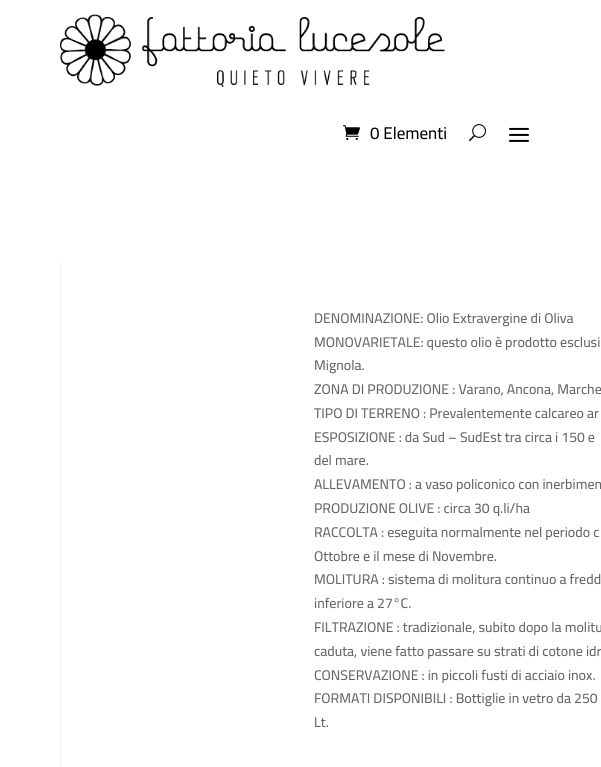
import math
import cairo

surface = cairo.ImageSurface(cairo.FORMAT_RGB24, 601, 767)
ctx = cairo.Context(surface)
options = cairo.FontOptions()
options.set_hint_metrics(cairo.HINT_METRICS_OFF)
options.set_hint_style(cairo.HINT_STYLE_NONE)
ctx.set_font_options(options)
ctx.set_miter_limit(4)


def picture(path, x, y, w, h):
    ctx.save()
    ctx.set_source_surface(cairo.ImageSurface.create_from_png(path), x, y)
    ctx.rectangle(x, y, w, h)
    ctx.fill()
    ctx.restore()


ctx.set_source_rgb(1, 1, 1)
ctx.paint()
picture("img1.png", 60, 14, 385, 73)
picture("img2.png", 343, 125, 17, 15)
ctx.select_font_face("Cairo Medium")
ctx.set_font_size(17)
ctx.set_source_rgb(0, 0, 0)
ctx.move_to(370, 139)
ctx.show_text("0 Elementi")
picture("img3.png", 469, 124, 17, 18)
picture("img4.png", 509, 127, 20, 15)
ctx.set_source_rgb(0.933, 0.933, 0.933)
ctx.rectangle(60, 262, 1, 505)
ctx.fill()
ctx.set_source_rgb(1, 1, 1)
ctx.rectangle(60, 262, 1, 1)
ctx.fill()
ctx.set_font_size(14)
ctx.set_source_rgb(0.4, 0.4, 0.4)
ctx.move_to(314, 323)
ctx.show_text("DENOMINAZIONE: Olio Extravergine di Oliva")
ctx.move_to(314, 347)
ctx.show_text("MONOVARIETALE: questo olio è prodotto esclusi")
ctx.move_to(314, 370)
ctx.show_text("Mignola.")
ctx.move_to(314, 394)
ctx.show_text("ZONA DI PRODUZIONE : Varano, Ancona, Marche")
ctx.move_to(314, 418)
ctx.show_text("TIPO DI TERRENO : Prevalentemente calcareo ar")
ctx.move_to(314, 442)
ctx.show_text("ESPOSIZIONE : da Sud – SudEst tra circa i 150 e")
ctx.move_to(314, 465)
ctx.show_text("del mare.")
ctx.move_to(314, 489)
ctx.show_text("ALLEVAMENTO : a vaso policonico con inerbimen")
ctx.move_to(314, 513)
ctx.show_text("PRODUZIONE OLIVE : circa 30 q.li/ha")
ctx.move_to(314, 537)
ctx.show_text("RACCOLTA : eseguita normalmente nel periodo c")
ctx.move_to(314, 561)
ctx.show_text("Ottobre e il mese di Novembre.")
ctx.move_to(314, 584)
ctx.show_text("MOLITURA : sistema di molitura continuo a fredd")
ctx.move_to(314, 608)
ctx.show_text("inferiore a 27°C.")
ctx.move_to(314, 632)
ctx.show_text("FILTRAZIONE : tradizionale, subito dopo la molitu")
ctx.move_to(314, 656)
ctx.show_text("caduta, viene fatto passare su strati di cotone idr")
ctx.move_to(314, 680)
ctx.show_text("CONSERVAZIONE : in piccoli fusti di acciaio inox.")
ctx.move_to(314, 703)
ctx.show_text("FORMATI DISPONIBILI : Bottiglie in vetro da 250")
ctx.move_to(314, 727)
ctx.show_text("Lt.")
surface.write_to_png("page.png")
